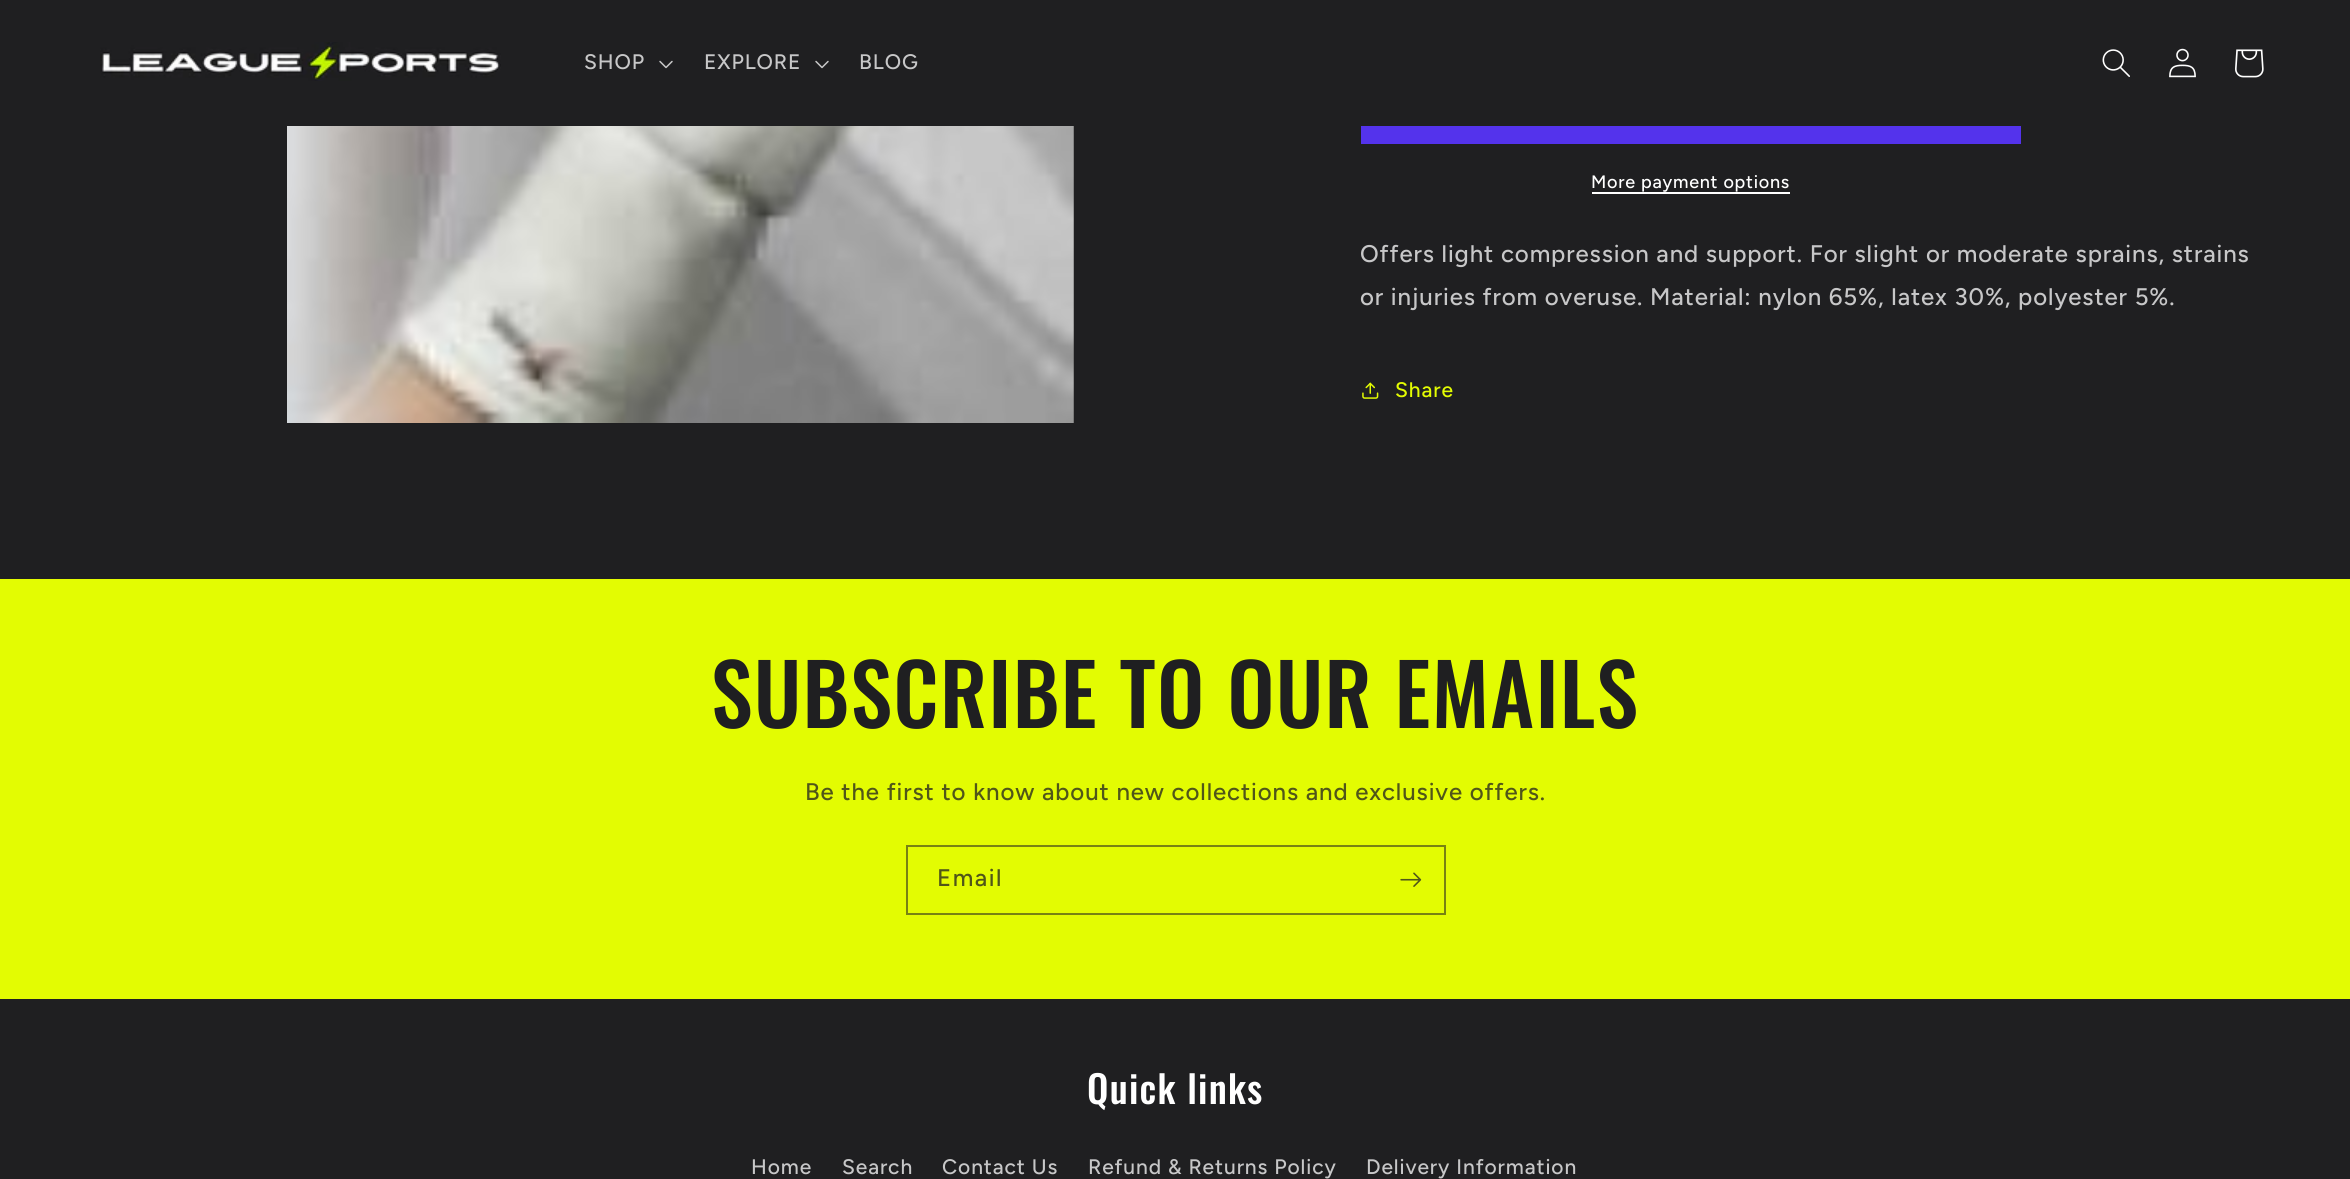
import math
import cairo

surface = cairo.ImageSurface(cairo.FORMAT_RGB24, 2350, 1179)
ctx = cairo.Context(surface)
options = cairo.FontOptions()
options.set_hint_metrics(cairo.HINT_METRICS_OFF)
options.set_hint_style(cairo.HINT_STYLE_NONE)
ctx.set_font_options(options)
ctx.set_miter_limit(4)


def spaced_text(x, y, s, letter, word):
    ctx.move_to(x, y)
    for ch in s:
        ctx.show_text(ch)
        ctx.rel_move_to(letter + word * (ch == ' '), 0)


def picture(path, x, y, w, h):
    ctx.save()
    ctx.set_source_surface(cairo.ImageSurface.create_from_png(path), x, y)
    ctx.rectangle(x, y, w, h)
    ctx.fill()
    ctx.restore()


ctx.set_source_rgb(0.122, 0.122, 0.129)
ctx.paint()
picture("img1.png", 100, 42, 401, 39)
ctx.select_font_face("Figtree Medium")
ctx.set_font_size(21)
ctx.set_source_rgb(0.78, 0.78, 0.784)
spaced_text(584, 69, "SHOP", 0.9, 0)
picture("img2.png", 659, 60, 14, 9)
spaced_text(704, 69, "EXPLORE", 0.9, 0)
picture("img2.png", 815, 60, 14, 9)
spaced_text(859, 69, "BLOG", 0.9, 0)
picture("img3.png", 2102, 49, 28, 28)
picture("img4.png", 2169, 48, 27, 30)
picture("img5.png", 2235, 49, 29, 29)
picture("img6.png", 287, 126, 787, 297)
ctx.set_source_rgb(0.329, 0.2, 0.922)
ctx.rectangle(1361, 126, 660, 18)
ctx.fill()
ctx.set_font_size(18)
ctx.set_source_rgb(1, 1, 1)
spaced_text(1591, 188, "More payment options", 0.75, 0)
ctx.rectangle(1592, 192, 198, 2)
ctx.fill()
ctx.set_font_size(24)
ctx.set_source_rgb(0.78, 0.78, 0.784)
spaced_text(1360, 262, "Offers light compression and support. For slight or moderate sprains, strains", 0.9, 0)
spaced_text(1360, 305, "or injuries from overuse. Material: nylon 65%, latex 30%, polyester 5%.", 0.9, 0)
picture("img7.png", 1362, 382, 17, 17)
ctx.set_font_size(21)
ctx.set_source_rgb(0.89, 0.988, 0.008)
spaced_text(1395, 397, "Share", 0.9, 0)
ctx.rectangle(0, 579, 2350, 420)
ctx.fill()
ctx.select_font_face("Oswald Medium")
ctx.set_font_size(84)
ctx.set_source_rgb(0.122, 0.122, 0.129)
spaced_text(711, 728, "SUBSCRIBE TO OUR EMAILS", 1.25, 0)
ctx.select_font_face("Figtree Medium")
ctx.set_font_size(24)
ctx.set_source_rgb(0.314, 0.337, 0.098)
spaced_text(805, 800, "Be the first to know about new collections and exclusive offers.", 0.9, 0)
ctx.rectangle(907, 846, 538, 68)
ctx.set_source_rgb(0.467, 0.51, 0.075)
ctx.stroke()
ctx.set_source_rgb(0.314, 0.337, 0.098)
spaced_text(937, 886, "Email", 1.5, 0)
picture("img8.png", 1400, 872, 22, 15)
ctx.select_font_face("Oswald Medium")
ctx.set_font_size(38)
ctx.set_source_rgb(1, 1, 1)
spaced_text(1087, 1104, "Quick links", 1.25, 0)
ctx.select_font_face("Figtree Medium")
ctx.set_font_size(21)
ctx.set_source_rgb(0.78, 0.78, 0.784)
spaced_text(751, 1174, "Home", 0.9, 0)
spaced_text(842, 1174, "Search", 0.9, 0)
spaced_text(942, 1174, "Contact Us", 0.9, 0)
spaced_text(1088, 1174, "Refund & Returns Policy", 0.9, 0)
spaced_text(1366, 1174, "Delivery Information", 0.9, 0)
surface.write_to_png("page.png")
